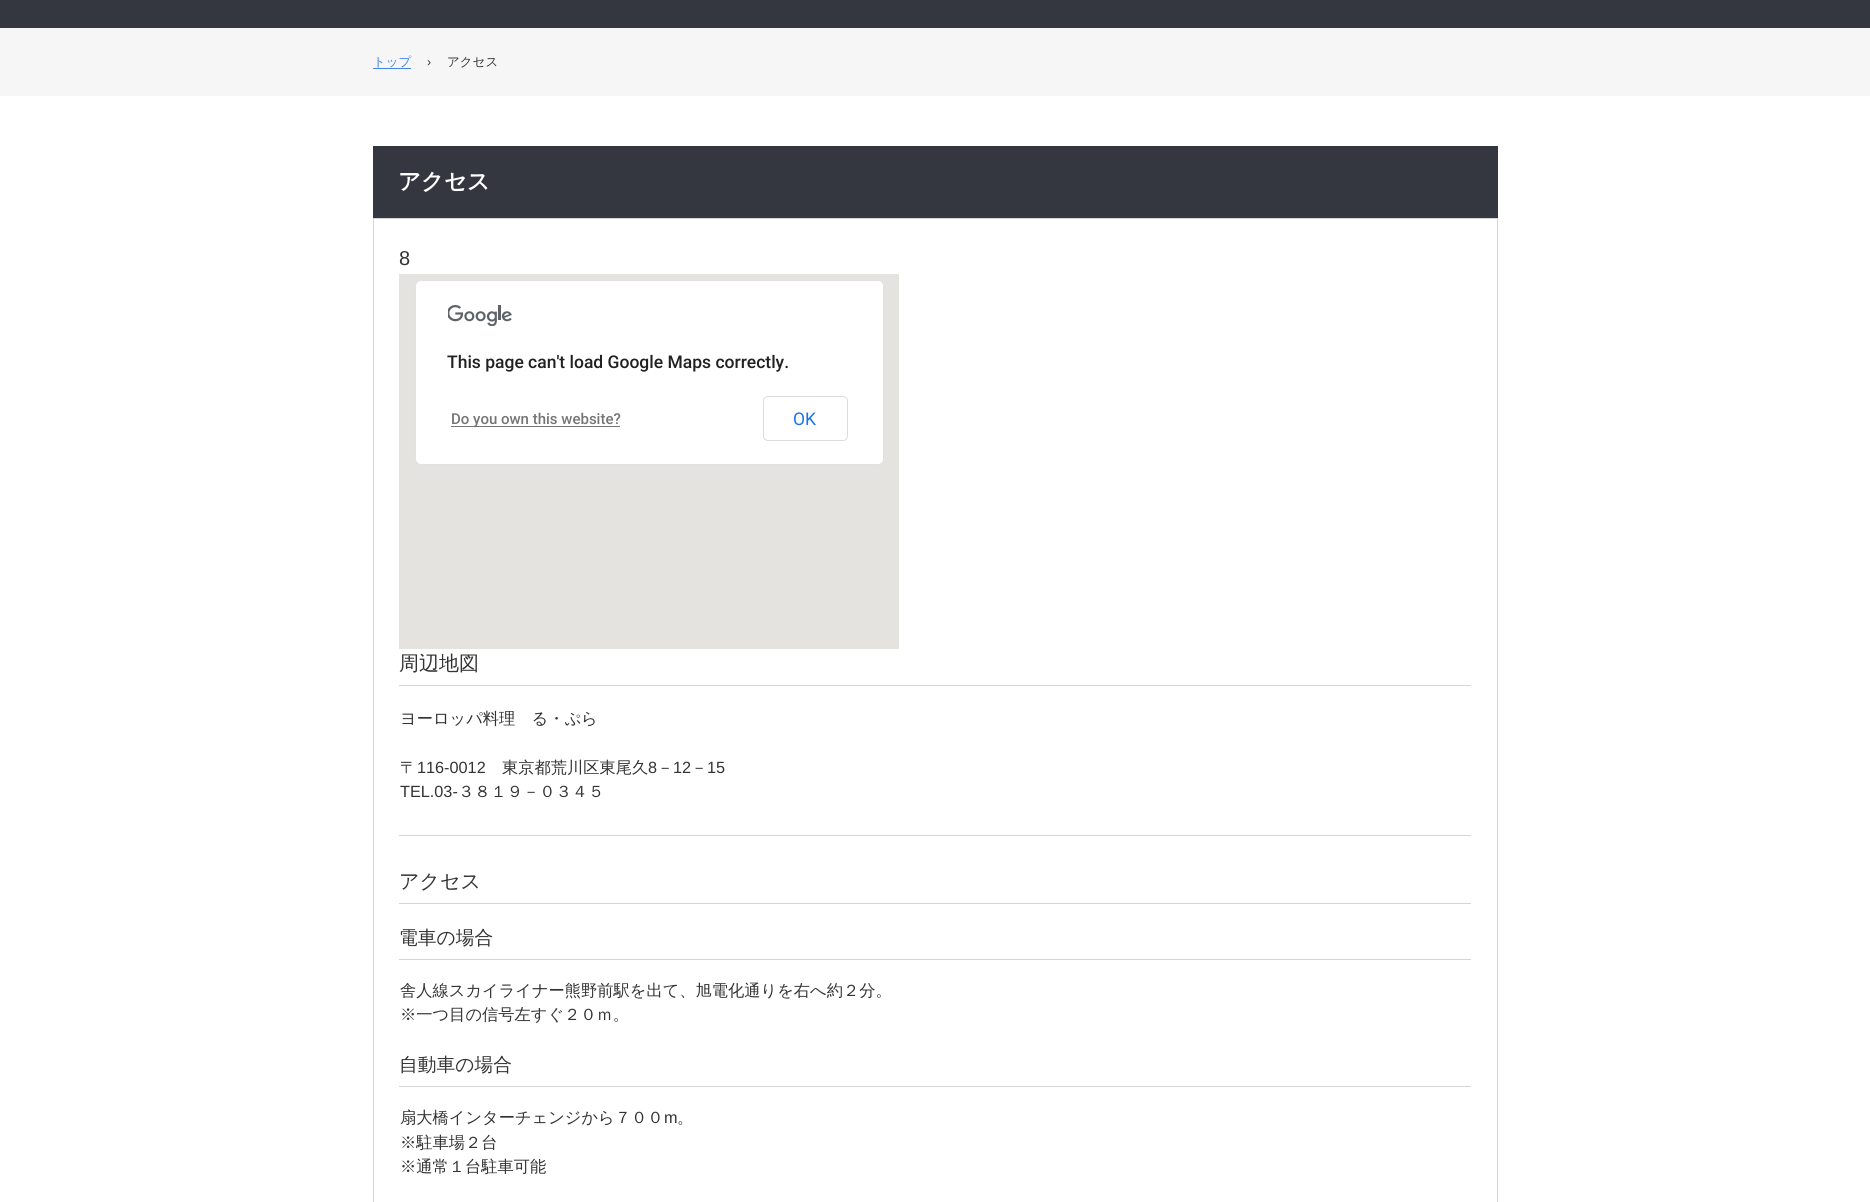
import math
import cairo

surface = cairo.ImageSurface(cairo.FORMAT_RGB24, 1870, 1202)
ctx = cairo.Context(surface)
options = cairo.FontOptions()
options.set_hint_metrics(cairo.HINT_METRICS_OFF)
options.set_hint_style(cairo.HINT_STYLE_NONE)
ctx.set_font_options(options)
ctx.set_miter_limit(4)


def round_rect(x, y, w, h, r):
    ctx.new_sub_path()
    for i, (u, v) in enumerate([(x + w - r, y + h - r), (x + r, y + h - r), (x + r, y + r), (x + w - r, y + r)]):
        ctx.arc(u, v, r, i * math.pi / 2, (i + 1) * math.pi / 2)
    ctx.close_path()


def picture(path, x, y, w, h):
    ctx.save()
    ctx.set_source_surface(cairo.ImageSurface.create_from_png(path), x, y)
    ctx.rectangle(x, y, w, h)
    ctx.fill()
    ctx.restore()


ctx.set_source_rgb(1, 1, 1)
ctx.paint()
ctx.set_source_rgb(0.204, 0.216, 0.251)
ctx.rectangle(0, 0, 1870, 28)
ctx.fill()
ctx.set_source_rgb(0.961, 0.961, 0.961)
ctx.rectangle(0, 28, 1870, 68)
ctx.fill()
ctx.select_font_face("WenQuanYi Zen Hei Medium")
ctx.set_font_size(12.5)
ctx.set_source_rgb(0.259, 0.514, 0.925)
ctx.move_to(373, 66)
ctx.show_text("トップ")
ctx.rectangle(373, 68, 38, 1)
ctx.fill()
ctx.select_font_face("Liberation Sans")
ctx.set_source_rgb(0.2, 0.2, 0.2)
ctx.move_to(427, 66)
ctx.show_text("›")
ctx.select_font_face("WenQuanYi Zen Hei Medium")
ctx.move_to(447, 66)
ctx.show_text("アクセス")
ctx.set_source_rgb(0.204, 0.216, 0.251)
ctx.rectangle(373, 146, 1125, 72)
ctx.fill()
ctx.select_font_face("WenQuanYi Zen Hei", cairo.FONT_SLANT_NORMAL, cairo.FONT_WEIGHT_BOLD)
ctx.set_font_size(22.5)
ctx.set_source_rgb(1, 1, 1)
ctx.move_to(398, 189)
ctx.show_text("アクセス")
ctx.rectangle(373.5, 218.5, 1124, 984)
ctx.set_source_rgb(0.835, 0.835, 0.835)
ctx.set_line_width(1)
ctx.stroke()
ctx.select_font_face("Liberation Sans")
ctx.set_font_size(20)
ctx.set_source_rgb(0.2, 0.2, 0.2)
ctx.move_to(399, 265)
ctx.show_text("8")
ctx.set_source_rgb(0.898, 0.89, 0.875)
ctx.rectangle(399, 274, 500, 375)
ctx.fill()
ctx.set_source_rgb(1, 1, 1)
round_rect(415, 280, 469, 185, 6)
ctx.fill()
round_rect(415.5, 280.5, 468, 184, 5.5)
ctx.set_source_rgba(0, 0, 0, 0.12)
ctx.stroke()
picture("img1.png", 448, 305, 64, 21)
ctx.select_font_face("Roboto Medium")
ctx.set_font_size(17.5)
ctx.set_source_rgb(0.129, 0.129, 0.129)
ctx.move_to(447, 368)
ctx.show_text("This page can't load Google Maps correctly.")
ctx.set_source_rgb(0.459, 0.459, 0.459)
ctx.rectangle(451, 426, 169, 1)
ctx.fill()
ctx.set_font_size(15)
ctx.move_to(451, 424)
ctx.show_text("Do you own this website?")
round_rect(763.5, 396.5, 84, 44, 4.5)
ctx.set_source_rgb(0.855, 0.863, 0.878)
ctx.stroke()
ctx.select_font_face("Roboto")
ctx.set_font_size(17.5)
ctx.set_source_rgb(0.102, 0.451, 0.91)
ctx.move_to(793, 425)
ctx.show_text("OK")
ctx.set_source_rgb(0.835, 0.835, 0.835)
ctx.rectangle(399, 685, 1072, 1)
ctx.fill()
ctx.select_font_face("WenQuanYi Zen Hei Medium")
ctx.set_font_size(20)
ctx.set_source_rgb(0.2, 0.2, 0.2)
ctx.move_to(399, 670)
ctx.show_text("周辺地図")
ctx.set_font_size(16.25)
ctx.move_to(400, 724)
ctx.show_text("ヨーロッパ料理　る・ぷら")
ctx.move_to(400, 773)
ctx.show_text("〒")
ctx.select_font_face("Liberation Sans")
ctx.move_to(417, 773)
ctx.show_text("116-0012")
ctx.select_font_face("WenQuanYi Zen Hei Medium")
ctx.move_to(502, 773)
ctx.show_text("東京都荒川区東尾久")
ctx.select_font_face("Liberation Sans")
ctx.move_to(648, 773)
ctx.show_text("8")
ctx.select_font_face("WenQuanYi Zen Hei Medium")
ctx.move_to(657, 773)
ctx.show_text("－")
ctx.select_font_face("Liberation Sans")
ctx.move_to(673, 773)
ctx.show_text("12")
ctx.select_font_face("WenQuanYi Zen Hei Medium")
ctx.move_to(691, 773)
ctx.show_text("－")
ctx.select_font_face("Liberation Sans")
ctx.move_to(707, 773)
ctx.show_text("15")
ctx.move_to(400, 797)
ctx.show_text("TEL.03-")
ctx.select_font_face("WenQuanYi Zen Hei Medium")
ctx.move_to(458, 797)
ctx.show_text("３８１９－０３４５")
ctx.set_source_rgb(0.835, 0.835, 0.835)
ctx.rectangle(399, 835, 1072, 1)
ctx.fill()
ctx.rectangle(399, 903, 1072, 1)
ctx.fill()
ctx.set_font_size(20)
ctx.set_source_rgb(0.2, 0.2, 0.2)
ctx.move_to(399, 888)
ctx.show_text("アクセス")
ctx.set_source_rgb(0.835, 0.835, 0.835)
ctx.rectangle(399, 959, 1072, 1)
ctx.fill()
ctx.set_font_size(18.75)
ctx.set_source_rgb(0.2, 0.2, 0.2)
ctx.move_to(399, 944)
ctx.show_text("電車の場合")
ctx.set_font_size(16.25)
ctx.move_to(400, 996)
ctx.show_text("舎人線スカイライナー熊野前駅を出て、旭電化通りを右へ約２分。")
ctx.move_to(400, 1020)
ctx.show_text("※一つ目の信号左すぐ２０ｍ。")
ctx.set_source_rgb(0.835, 0.835, 0.835)
ctx.rectangle(399, 1086, 1072, 1)
ctx.fill()
ctx.set_font_size(18.75)
ctx.set_source_rgb(0.2, 0.2, 0.2)
ctx.move_to(399, 1071)
ctx.show_text("自動車の場合")
ctx.set_font_size(16.25)
ctx.move_to(400, 1123)
ctx.show_text("扇大橋インターチェンジから７００")
ctx.select_font_face("Liberation Sans")
ctx.move_to(664, 1123)
ctx.show_text("m")
ctx.select_font_face("WenQuanYi Zen Hei Medium")
ctx.move_to(677, 1123)
ctx.show_text("。")
ctx.move_to(400, 1148)
ctx.show_text("※駐車場２台")
ctx.move_to(400, 1172)
ctx.show_text("※通常１台駐車可能")
surface.write_to_png("page.png")
